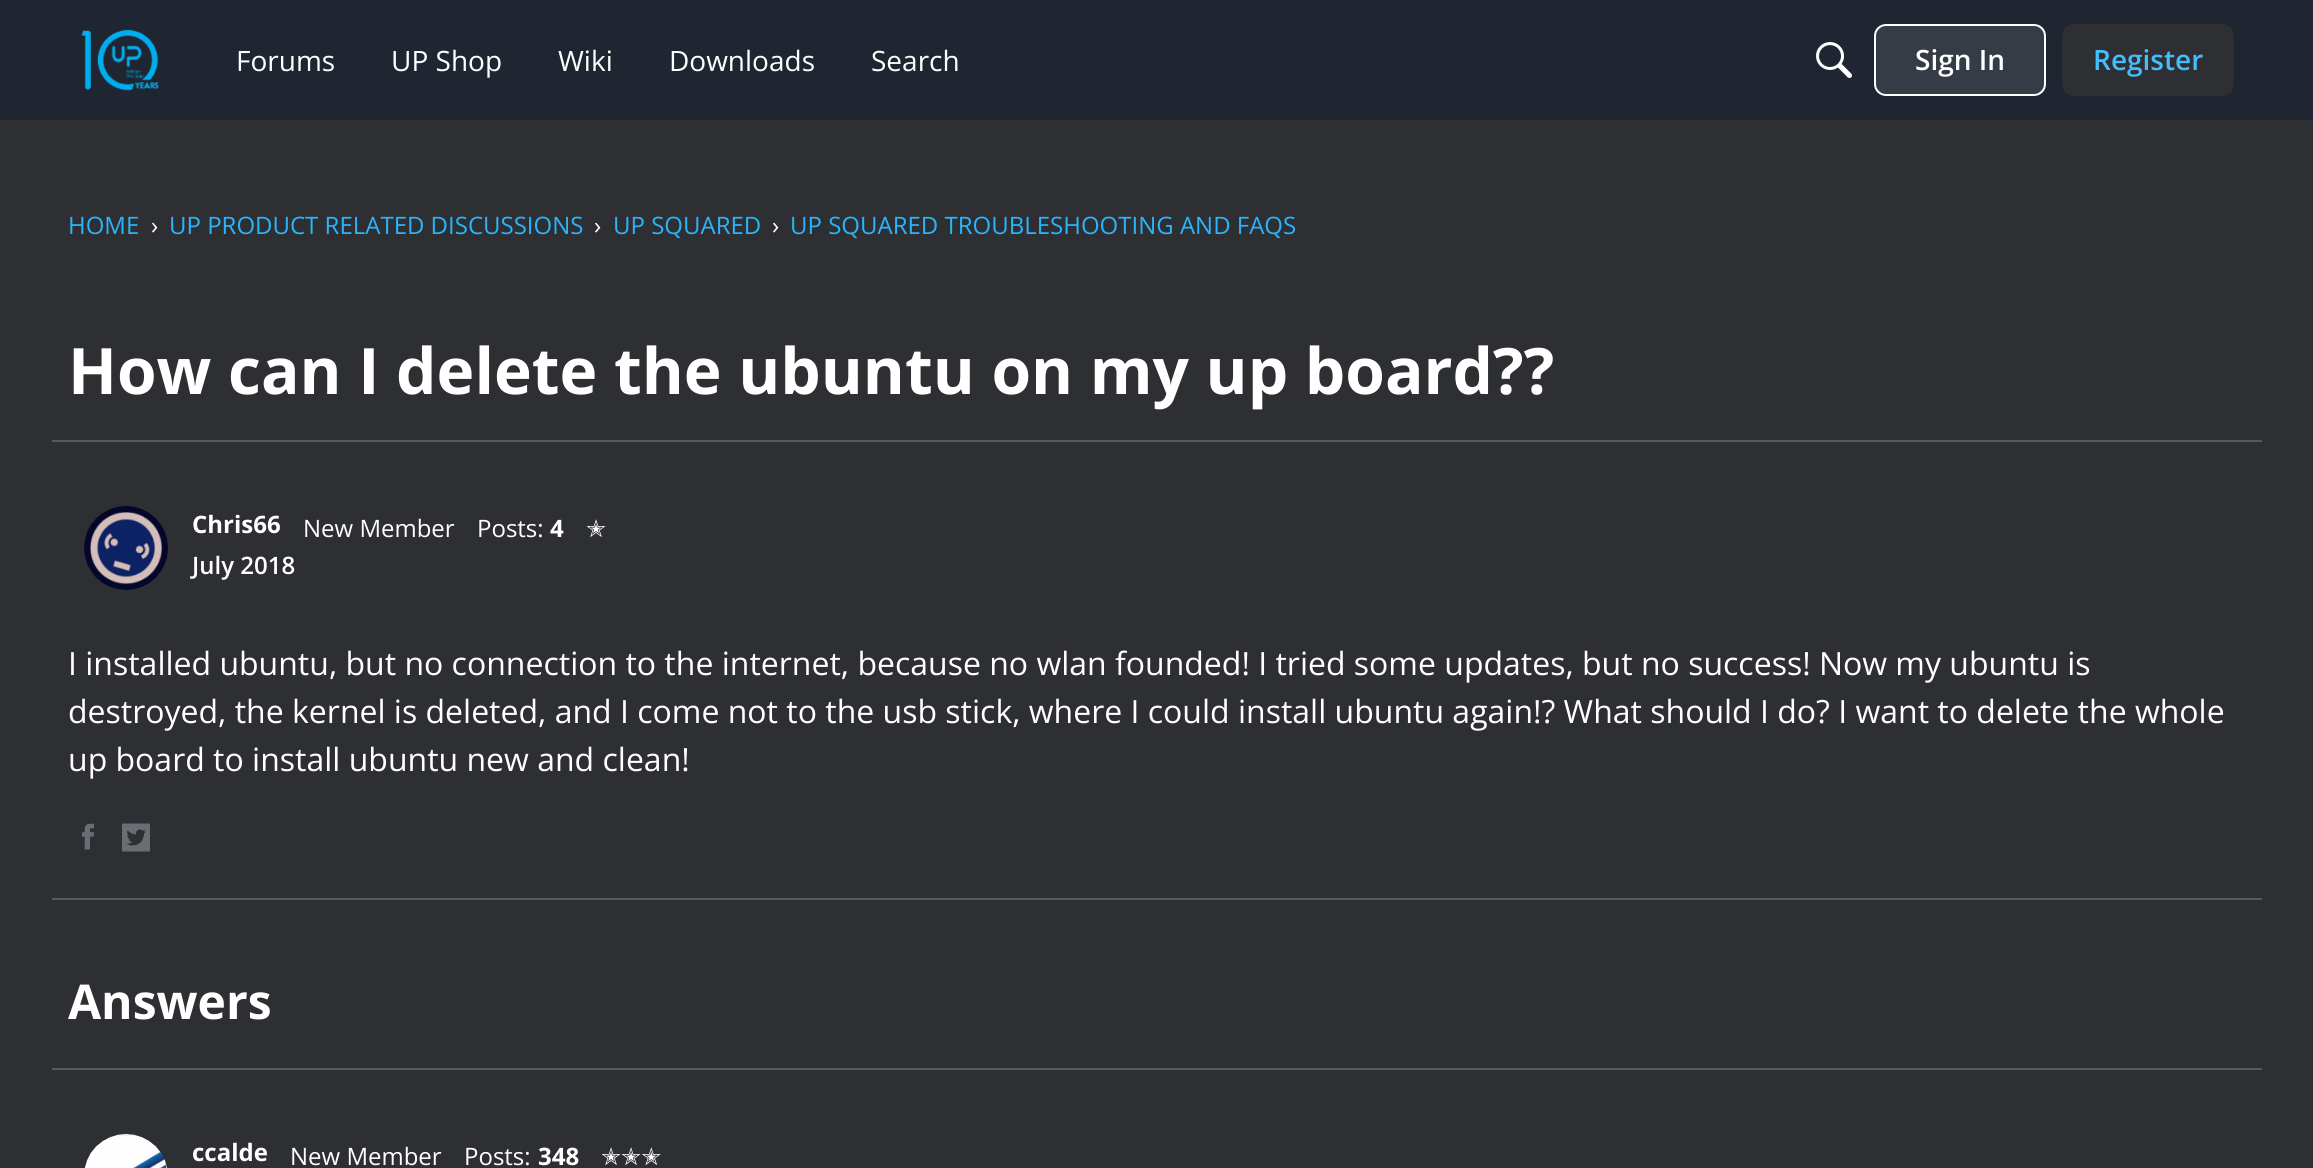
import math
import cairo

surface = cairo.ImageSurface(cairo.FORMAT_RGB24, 2313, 1168)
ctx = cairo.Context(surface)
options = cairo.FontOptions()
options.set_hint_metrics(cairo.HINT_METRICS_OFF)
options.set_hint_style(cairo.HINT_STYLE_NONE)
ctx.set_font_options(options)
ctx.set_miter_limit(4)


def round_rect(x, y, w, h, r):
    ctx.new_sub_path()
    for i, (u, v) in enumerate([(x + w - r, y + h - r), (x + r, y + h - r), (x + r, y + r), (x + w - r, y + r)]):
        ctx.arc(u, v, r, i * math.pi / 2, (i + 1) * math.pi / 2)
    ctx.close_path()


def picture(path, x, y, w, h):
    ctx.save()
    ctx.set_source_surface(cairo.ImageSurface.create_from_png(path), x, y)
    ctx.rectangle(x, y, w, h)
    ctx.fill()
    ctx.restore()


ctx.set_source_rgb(0.18, 0.184, 0.196)
ctx.paint()
ctx.set_source_rgb(0.125, 0.149, 0.192)
ctx.rectangle(0, 0, 2313, 120)
ctx.fill()
picture("img1.png", 81, 29, 78, 62)
ctx.select_font_face("Open Sans")
ctx.set_font_size(28)
ctx.set_source_rgb(1, 1, 1)
ctx.move_to(236, 71)
ctx.show_text("Forums")
ctx.move_to(391, 71)
ctx.show_text("UP Shop")
ctx.move_to(558, 71)
ctx.show_text("Wiki")
ctx.move_to(669, 71)
ctx.show_text("Downloads")
ctx.move_to(871, 71)
ctx.show_text("Search")
picture("img2.png", 1816, 42, 36, 36)
ctx.set_source_rgb(0.212, 0.235, 0.275)
round_rect(1875, 25, 170, 70, 11)
ctx.fill_preserve()
ctx.set_source_rgb(1, 1, 1)
ctx.stroke()
ctx.select_font_face("Open Sans SemiBold")
ctx.move_to(1915, 70)
ctx.show_text("Sign In")
ctx.set_source_rgb(0.18, 0.184, 0.196)
round_rect(2063, 25, 170, 70, 11)
ctx.fill_preserve()
ctx.stroke()
ctx.set_source_rgb(0.263, 0.741, 0.988)
ctx.move_to(2093, 70)
ctx.show_text("Register")
ctx.select_font_face("Open Sans")
ctx.set_font_size(24)
ctx.set_source_rgb(0.165, 0.706, 0.988)
ctx.move_to(68, 234)
ctx.show_text("HOME")
ctx.set_source_rgb(1, 1, 1)
ctx.move_to(151, 234)
ctx.show_text("›")
ctx.set_source_rgb(0.165, 0.706, 0.988)
ctx.move_to(169, 234)
ctx.show_text("UP PRODUCT RELATED DISCUSSIONS")
ctx.set_source_rgb(1, 1, 1)
ctx.move_to(594, 234)
ctx.show_text("›")
ctx.set_source_rgb(0.165, 0.706, 0.988)
ctx.move_to(613, 234)
ctx.show_text("UP SQUARED")
ctx.set_source_rgb(1, 1, 1)
ctx.move_to(772, 234)
ctx.show_text("›")
ctx.set_source_rgb(0.165, 0.706, 0.988)
ctx.move_to(790, 234)
ctx.show_text("UP SQUARED TROUBLESHOOTING AND FAQS")
ctx.select_font_face("Open Sans", cairo.FONT_SLANT_NORMAL, cairo.FONT_WEIGHT_BOLD)
ctx.set_font_size(64)
ctx.set_source_rgb(1, 1, 1)
ctx.move_to(68, 394)
ctx.show_text("How can I delete the ubuntu on my up board??")
ctx.set_source_rgb(0.345, 0.349, 0.357)
ctx.rectangle(52, 440, 2210, 2)
ctx.fill()
picture("img3.png", 84, 506, 84, 84)
ctx.set_font_size(24)
ctx.set_source_rgb(1, 1, 1)
ctx.move_to(192, 533)
ctx.show_text("Chris66")
ctx.select_font_face("Open Sans")
ctx.move_to(303, 537)
ctx.show_text("New Member")
ctx.move_to(477, 537)
ctx.show_text("Posts:")
ctx.select_font_face("Open Sans", cairo.FONT_SLANT_NORMAL, cairo.FONT_WEIGHT_BOLD)
ctx.move_to(550, 537)
ctx.show_text("4")
ctx.select_font_face("DejaVu Sans")
ctx.move_to(586, 537)
ctx.show_text("✭")
ctx.select_font_face("Open Sans SemiBold")
ctx.move_to(192, 574)
ctx.show_text("July 2018")
ctx.select_font_face("Open Sans")
ctx.set_font_size(32)
ctx.move_to(68, 675)
ctx.show_text("I installed ubuntu, but no connection to the internet, because no wlan founded! I tried some updates, but no success! Now my ubuntu is")
ctx.move_to(68, 723)
ctx.show_text("destroyed, the kernel is deleted, and I come not to the usb stick, where I could install ubuntu again!? What should I do? I want to delete the whole")
ctx.move_to(68, 771)
ctx.show_text("up board to install ubuntu new and clean!")
picture("img4.png", 82, 823, 12, 27)
picture("img5.png", 122, 823, 28, 29)
ctx.set_source_rgb(0.345, 0.349, 0.357)
ctx.rectangle(52, 898, 2210, 2)
ctx.fill()
ctx.select_font_face("Open Sans", cairo.FONT_SLANT_NORMAL, cairo.FONT_WEIGHT_BOLD)
ctx.set_font_size(48)
ctx.set_source_rgb(1, 1, 1)
ctx.move_to(68, 1019)
ctx.show_text("Answers")
ctx.set_source_rgb(0.345, 0.349, 0.357)
ctx.rectangle(52, 1068, 2210, 2)
ctx.fill()
picture("img6.png", 84, 1134, 84, 34)
ctx.set_font_size(24)
ctx.set_source_rgb(1, 1, 1)
ctx.move_to(192, 1161)
ctx.show_text("ccalde")
ctx.select_font_face("Open Sans")
ctx.move_to(290, 1165)
ctx.show_text("New Member")
ctx.move_to(464, 1165)
ctx.show_text("Posts:")
ctx.select_font_face("Open Sans", cairo.FONT_SLANT_NORMAL, cairo.FONT_WEIGHT_BOLD)
ctx.move_to(538, 1165)
ctx.show_text("348")
ctx.select_font_face("DejaVu Sans")
ctx.move_to(601, 1165)
ctx.show_text("✭✭✭")
surface.write_to_png("page.png")
